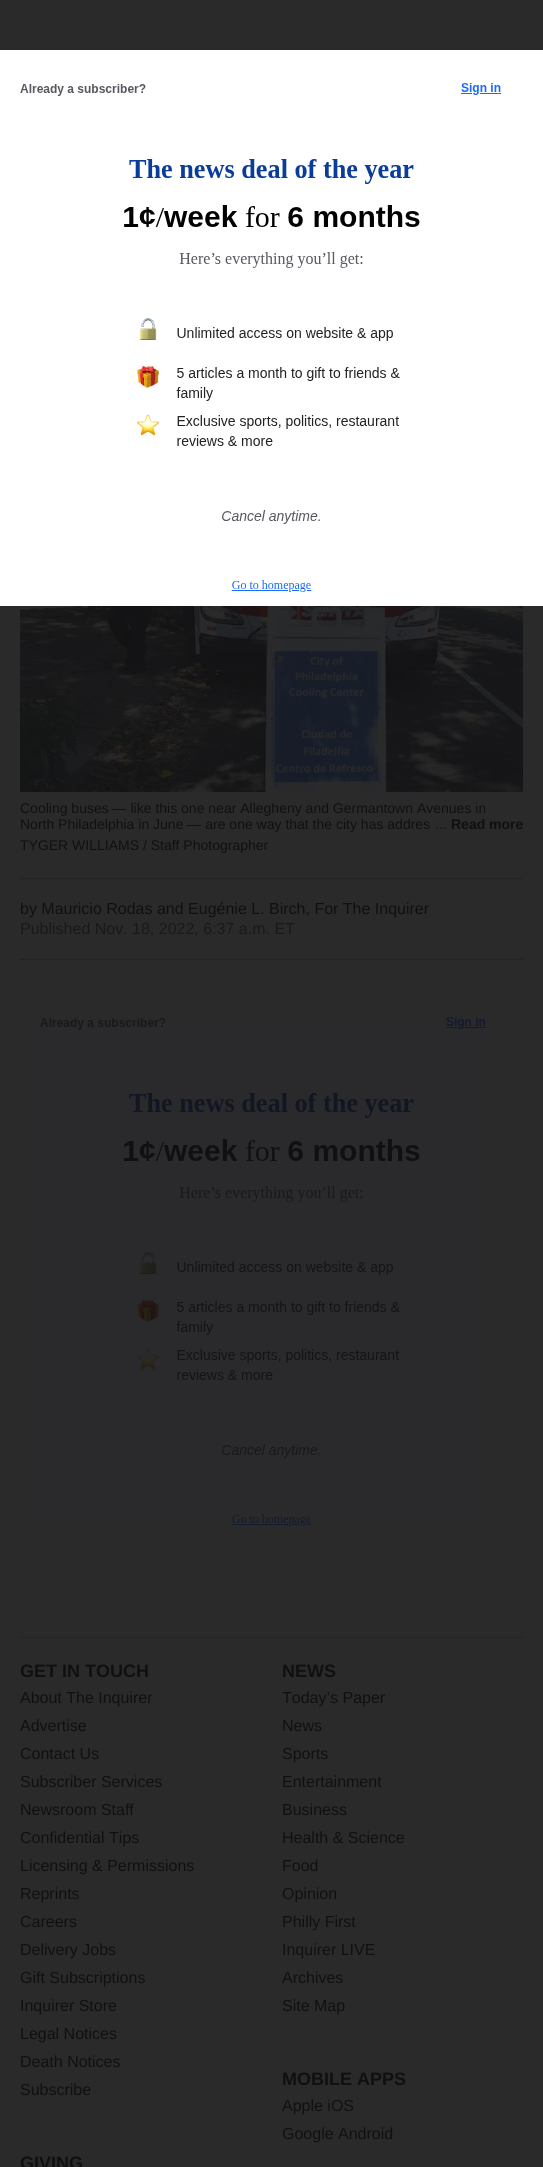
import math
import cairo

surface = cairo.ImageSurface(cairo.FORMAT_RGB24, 543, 2167)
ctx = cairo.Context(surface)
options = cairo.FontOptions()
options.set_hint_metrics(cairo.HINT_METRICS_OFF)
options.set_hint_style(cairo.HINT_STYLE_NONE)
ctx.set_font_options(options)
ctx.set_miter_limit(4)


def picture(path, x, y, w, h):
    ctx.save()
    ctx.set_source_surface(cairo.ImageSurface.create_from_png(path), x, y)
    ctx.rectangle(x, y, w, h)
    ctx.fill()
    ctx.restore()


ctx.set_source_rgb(0.165, 0.165, 0.169)
ctx.paint()
picture("img1.png", 0, 50, 543, 556)
picture("img2.png", 20, 606, 503, 186)
ctx.select_font_face("Liberation Sans")
ctx.set_font_size(14)
ctx.set_source_rgb(0.063, 0.063, 0.071)
ctx.move_to(20, 813)
ctx.show_text("Cooling buses — like this one near Allegheny and Germantown Avenues in")
ctx.move_to(20, 829)
ctx.show_text("North Philadelphia in June — are one way that the city has addres")
ctx.move_to(435, 829)
ctx.show_text("...")
ctx.select_font_face("Liberation Sans", cairo.FONT_SLANT_NORMAL, cairo.FONT_WEIGHT_BOLD)
ctx.move_to(451, 829)
ctx.show_text("Read more")
ctx.select_font_face("Liberation Sans")
ctx.move_to(20, 850)
ctx.show_text("TYGER WILLIAMS / Staff Photographer")
ctx.set_source_rgb(0.141, 0.141, 0.149)
ctx.rectangle(20, 878, 503, 1)
ctx.fill()
ctx.rectangle(20, 959, 503, 1)
ctx.fill()
ctx.set_font_size(16)
ctx.set_source_rgb(0.063, 0.063, 0.071)
ctx.move_to(20, 914)
ctx.show_text("by Mauricio Rodas and Eugénie L. Birch, For The Inquirer")
ctx.set_source_rgb(0.098, 0.098, 0.11)
ctx.move_to(20, 934)
ctx.show_text("Published Nov. 18, 2022, 6:37 a.m. ET")
picture("img3.png", 40, 1017, 446, 509)
ctx.set_source_rgb(0.141, 0.141, 0.149)
ctx.rectangle(20, 1637, 503, 1)
ctx.fill()
ctx.select_font_face("Liberation Sans", cairo.FONT_SLANT_NORMAL, cairo.FONT_WEIGHT_BOLD)
ctx.set_font_size(18)
ctx.set_source_rgb(0.063, 0.063, 0.071)
ctx.move_to(20, 1677)
ctx.show_text("GET IN TOUCH")
ctx.select_font_face("Liberation Sans")
ctx.set_font_size(16)
ctx.move_to(20, 1703)
ctx.show_text("About The Inquirer")
ctx.move_to(20, 1731)
ctx.show_text("Advertise")
ctx.move_to(20, 1759)
ctx.show_text("Contact Us")
ctx.move_to(20, 1787)
ctx.show_text("Subscriber Services")
ctx.move_to(20, 1815)
ctx.show_text("Newsroom Staff")
ctx.move_to(20, 1843)
ctx.show_text("Confidential Tips")
ctx.move_to(20, 1871)
ctx.show_text("Licensing & Permissions")
ctx.move_to(20, 1899)
ctx.show_text("Reprints")
ctx.move_to(20, 1927)
ctx.show_text("Careers")
ctx.move_to(20, 1955)
ctx.show_text("Delivery Jobs")
ctx.move_to(20, 1983)
ctx.show_text("Gift Subscriptions")
ctx.move_to(20, 2011)
ctx.show_text("Inquirer Store")
ctx.move_to(20, 2039)
ctx.show_text("Legal Notices")
ctx.move_to(20, 2067)
ctx.show_text("Death Notices")
ctx.move_to(20, 2095)
ctx.show_text("Subscribe")
ctx.select_font_face("Liberation Sans", cairo.FONT_SLANT_NORMAL, cairo.FONT_WEIGHT_BOLD)
ctx.set_font_size(18)
ctx.move_to(20, 2169)
ctx.show_text("GIVING")
ctx.move_to(282, 1677)
ctx.show_text("NEWS")
ctx.select_font_face("Liberation Sans")
ctx.set_font_size(16)
ctx.move_to(282, 1703)
ctx.show_text("Today’s Paper")
ctx.move_to(282, 1731)
ctx.show_text("News")
ctx.move_to(282, 1759)
ctx.show_text("Sports")
ctx.move_to(282, 1787)
ctx.show_text("Entertainment")
ctx.move_to(282, 1815)
ctx.show_text("Business")
ctx.move_to(282, 1843)
ctx.show_text("Health & Science")
ctx.move_to(282, 1871)
ctx.show_text("Food")
ctx.move_to(282, 1899)
ctx.show_text("Opinion")
ctx.move_to(282, 1927)
ctx.show_text("Philly First")
ctx.move_to(282, 1955)
ctx.show_text("Inquirer LIVE")
ctx.move_to(282, 1983)
ctx.show_text("Archives")
ctx.move_to(282, 2011)
ctx.show_text("Site Map")
ctx.select_font_face("Liberation Sans", cairo.FONT_SLANT_NORMAL, cairo.FONT_WEIGHT_BOLD)
ctx.set_font_size(18)
ctx.move_to(282, 2085)
ctx.show_text("MOBILE APPS")
ctx.select_font_face("Liberation Sans")
ctx.set_font_size(16)
ctx.move_to(282, 2111)
ctx.show_text("Apple iOS")
ctx.move_to(282, 2139)
ctx.show_text("Google Android")
surface.write_to_png("page.png")
